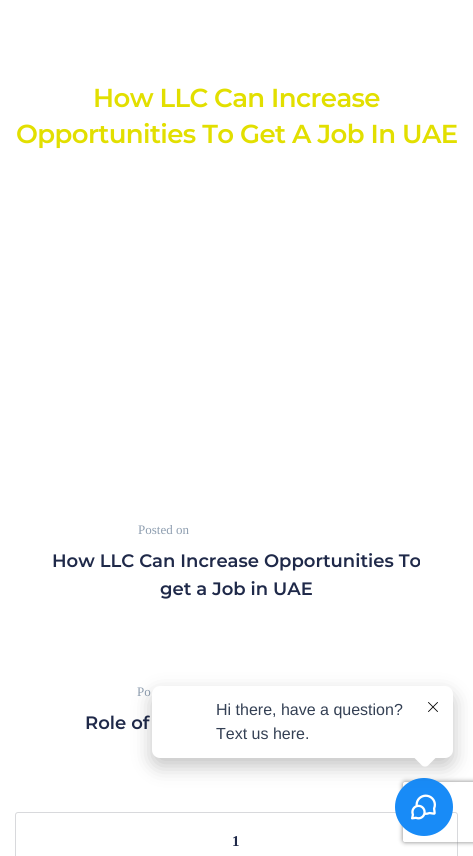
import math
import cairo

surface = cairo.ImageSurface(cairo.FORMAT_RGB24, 473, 856)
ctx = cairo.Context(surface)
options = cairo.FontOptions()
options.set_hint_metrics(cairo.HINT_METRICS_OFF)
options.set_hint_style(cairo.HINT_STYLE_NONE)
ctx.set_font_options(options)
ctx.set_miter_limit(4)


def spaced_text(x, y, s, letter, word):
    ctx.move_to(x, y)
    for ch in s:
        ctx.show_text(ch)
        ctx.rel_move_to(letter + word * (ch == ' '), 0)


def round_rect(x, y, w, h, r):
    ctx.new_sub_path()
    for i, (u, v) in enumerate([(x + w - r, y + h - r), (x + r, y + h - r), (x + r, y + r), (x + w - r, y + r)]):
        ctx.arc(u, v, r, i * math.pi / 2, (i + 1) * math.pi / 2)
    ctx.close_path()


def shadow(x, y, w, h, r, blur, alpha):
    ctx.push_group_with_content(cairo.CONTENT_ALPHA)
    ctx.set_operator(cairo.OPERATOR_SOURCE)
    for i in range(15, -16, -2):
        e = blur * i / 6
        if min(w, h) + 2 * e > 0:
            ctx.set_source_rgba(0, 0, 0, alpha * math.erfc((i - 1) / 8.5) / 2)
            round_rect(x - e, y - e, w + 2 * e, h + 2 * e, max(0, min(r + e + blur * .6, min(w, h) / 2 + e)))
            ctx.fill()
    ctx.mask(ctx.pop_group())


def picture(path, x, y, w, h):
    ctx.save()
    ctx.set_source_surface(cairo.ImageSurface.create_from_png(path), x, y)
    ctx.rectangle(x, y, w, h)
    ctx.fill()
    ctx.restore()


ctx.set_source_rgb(1, 1, 1)
ctx.paint()
ctx.select_font_face("Montserrat SemiBold")
ctx.set_font_size(26)
ctx.set_source_rgb(0.886, 0.875, 0)
spaced_text(93, 107, "How LLC Can Increase", -0.6, 0)
spaced_text(16, 143, "Opportunities To Get A Job In UAE", -0.6, 0)
ctx.select_font_face("Liberation Serif")
ctx.set_font_size(13)
ctx.set_source_rgb(0.557, 0.62, 0.69)
ctx.move_to(138, 534)
ctx.show_text("Posted on")
ctx.select_font_face("Montserrat SemiBold")
ctx.set_font_size(18)
ctx.set_source_rgb(0.122, 0.161, 0.286)
ctx.move_to(52, 567)
ctx.show_text("How LLC Can Increase Opportunities To")
ctx.move_to(160, 595)
ctx.show_text("get a Job in UAE")
ctx.select_font_face("Liberation Serif")
ctx.set_font_size(13)
ctx.set_source_rgb(0.557, 0.62, 0.69)
ctx.move_to(137, 696)
ctx.show_text("Po")
ctx.select_font_face("Montserrat SemiBold")
ctx.set_font_size(18)
ctx.set_source_rgb(0.122, 0.161, 0.286)
ctx.move_to(85, 729)
ctx.show_text("Role of")
round_rect(15.5, 812.5, 442, 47, 2.5)
ctx.set_source_rgb(0.847, 0.851, 0.863)
ctx.set_line_width(1)
ctx.stroke()
ctx.select_font_face("Liberation Serif", cairo.FONT_SLANT_NORMAL, cairo.FONT_WEIGHT_BOLD)
ctx.set_font_size(15)
ctx.set_source_rgb(0.122, 0.161, 0.286)
spaced_text(232, 846, "1", 1, 0)
ctx.save()
ctx.set_fill_rule(cairo.FILL_RULE_EVEN_ODD)
ctx.new_path()
ctx.move_to(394, 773)
ctx.line_to(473, 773)
ctx.line_to(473, 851)
ctx.line_to(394, 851)
ctx.close_path()
ctx.move_to(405, 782)
ctx.line_to(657, 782)
ctx.curve_to(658, 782, 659, 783, 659, 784)
ctx.line_to(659, 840)
ctx.curve_to(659, 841, 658, 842, 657, 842)
ctx.line_to(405, 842)
ctx.curve_to(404, 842, 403, 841, 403, 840)
ctx.line_to(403, 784)
ctx.curve_to(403, 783, 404, 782, 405, 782)
ctx.close_path()
ctx.clip()
ctx.set_source_rgb(0.502, 0.502, 0.502)
shadow(403, 782, 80, 60, 2, 2.5, 1)
ctx.restore()
ctx.set_source_rgb(0.094, 0.545, 0.965)
ctx.arc(424, 807, 29, 0, 2 * math.pi)
ctx.fill()
picture("img2.png", 411, 794, 25, 26)
ctx.set_source_rgb(0, 0, 0)
shadow(152, 694, 301, 72, 8, 10, 0.24)
ctx.set_source_rgb(1, 1, 1)
round_rect(152, 686, 301, 72, 8)
ctx.fill()
ctx.select_font_face("Liberation Sans")
ctx.set_font_size(16)
ctx.set_source_rgb(0.204, 0.251, 0.329)
ctx.move_to(216, 715)
ctx.show_text("Hi there, have a question?")
ctx.move_to(216, 739)
ctx.show_text("Text us here.")
ctx.set_source_rgb(1, 1, 1)
ctx.new_path()
ctx.move_to(428, 742.5)
ctx.line_to(436.5, 751)
ctx.curve_to(438, 752.5, 438, 755.5, 436.5, 757)
ctx.line_to(428, 765.5)
ctx.curve_to(426.5, 767, 423.5, 767, 422, 765.5)
ctx.line_to(413.5, 757)
ctx.curve_to(412, 755.5, 412, 752.5, 413.5, 751)
ctx.line_to(422, 742.5)
ctx.curve_to(423.5, 741, 426.5, 741, 428, 742.5)
ctx.close_path()
ctx.fill()
picture("img1.png", 428, 702, 10, 10)
surface.write_to_png("page.png")
